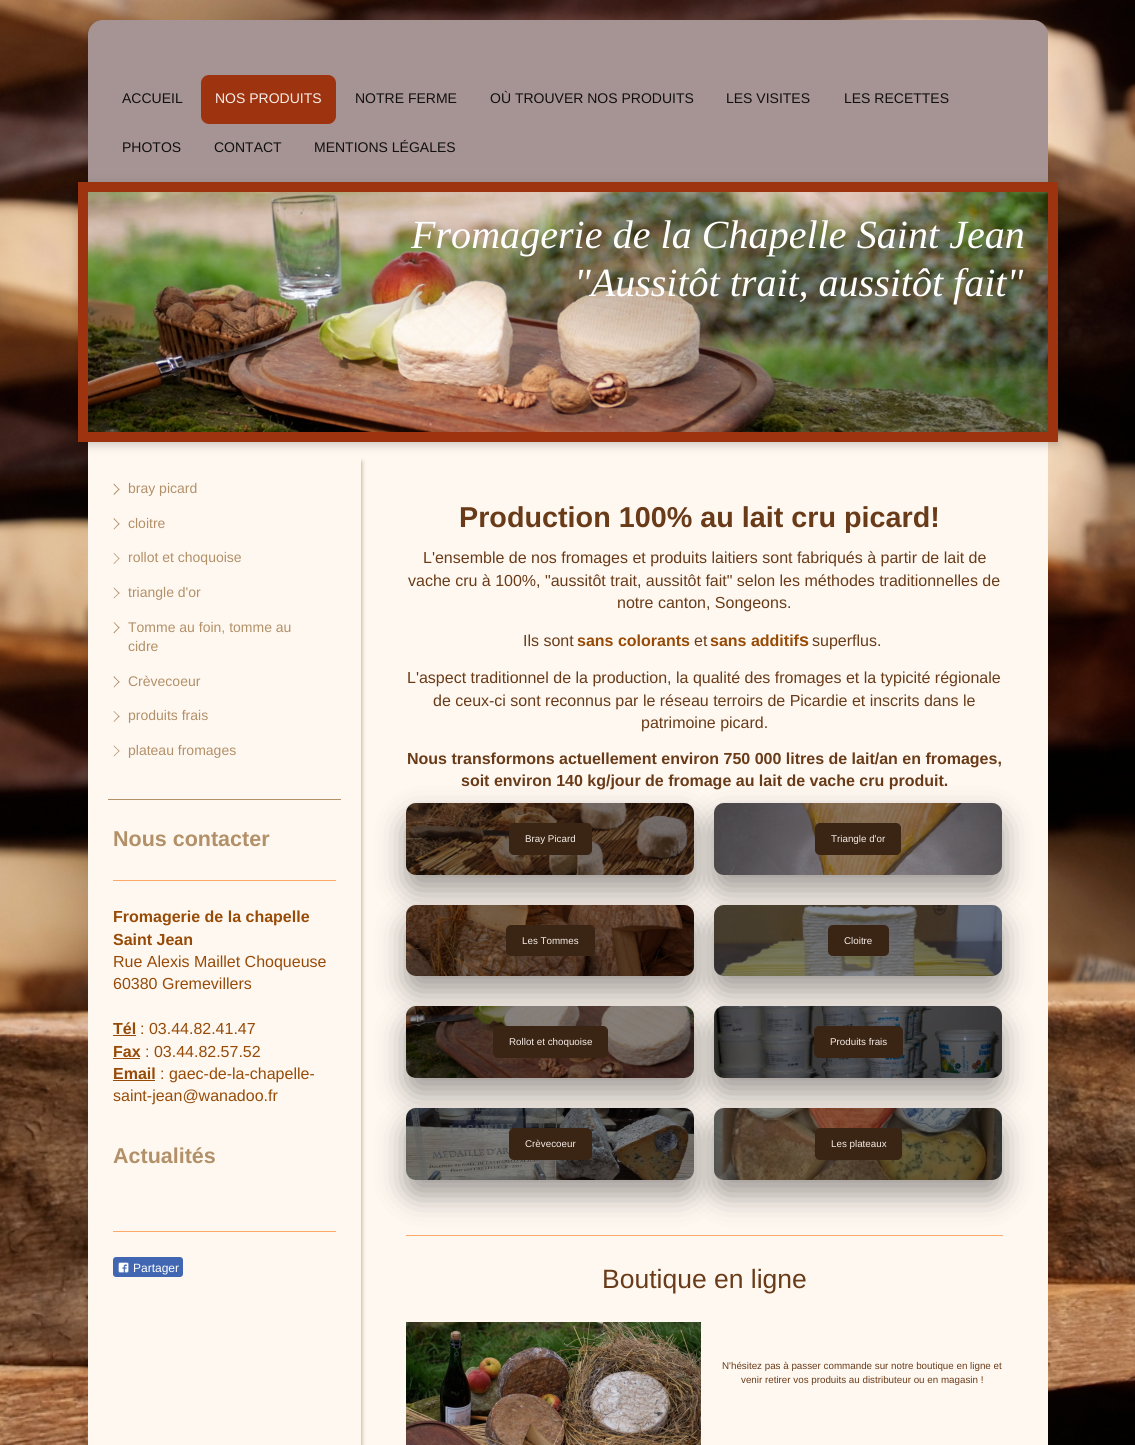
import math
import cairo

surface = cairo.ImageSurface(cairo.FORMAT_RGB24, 1135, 1445)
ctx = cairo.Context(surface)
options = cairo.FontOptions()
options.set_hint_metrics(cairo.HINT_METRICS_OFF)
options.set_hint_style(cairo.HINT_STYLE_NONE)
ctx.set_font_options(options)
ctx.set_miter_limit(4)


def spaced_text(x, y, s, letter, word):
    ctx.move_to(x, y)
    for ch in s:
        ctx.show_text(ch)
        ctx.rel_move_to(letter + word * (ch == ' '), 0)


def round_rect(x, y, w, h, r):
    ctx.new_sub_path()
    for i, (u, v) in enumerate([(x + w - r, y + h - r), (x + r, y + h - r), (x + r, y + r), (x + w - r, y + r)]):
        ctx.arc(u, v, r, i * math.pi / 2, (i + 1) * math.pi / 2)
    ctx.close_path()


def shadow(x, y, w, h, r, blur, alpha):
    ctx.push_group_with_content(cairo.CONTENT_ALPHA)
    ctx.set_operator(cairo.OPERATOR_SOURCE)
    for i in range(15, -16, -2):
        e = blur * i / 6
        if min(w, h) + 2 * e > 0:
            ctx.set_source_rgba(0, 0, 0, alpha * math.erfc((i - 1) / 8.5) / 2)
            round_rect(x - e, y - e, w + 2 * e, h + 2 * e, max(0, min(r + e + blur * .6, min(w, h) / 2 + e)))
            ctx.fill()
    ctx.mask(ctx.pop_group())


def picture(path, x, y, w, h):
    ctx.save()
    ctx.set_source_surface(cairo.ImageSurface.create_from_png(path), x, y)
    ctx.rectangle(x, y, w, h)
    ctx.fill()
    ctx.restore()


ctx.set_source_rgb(1, 1, 1)
ctx.paint()
picture("img1.png", 0, 0, 1135, 1445)
ctx.set_source_rgb(0.651, 0.58, 0.58)
round_rect(88, 20, 960, 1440, 15)
ctx.fill()
ctx.select_font_face("Liberation Sans")
ctx.set_font_size(14)
ctx.set_source_rgb(0.067, 0.059, 0.059)
ctx.move_to(122, 103)
ctx.show_text("ACCUEIL")
ctx.set_source_rgb(0.62, 0.204, 0.059)
round_rect(201, 75, 135, 49, 8)
ctx.fill()
ctx.set_source_rgb(0.961, 0.922, 0.906)
ctx.move_to(215, 103)
ctx.show_text("NOS PRODUITS")
ctx.set_source_rgb(0.067, 0.059, 0.059)
ctx.move_to(355, 103)
ctx.show_text("NOTRE FERME")
ctx.move_to(490, 103)
ctx.show_text("OÙ TROUVER NOS PRODUITS")
ctx.move_to(726, 103)
ctx.show_text("LES VISITES")
ctx.move_to(844, 103)
ctx.show_text("LES RECETTES")
ctx.move_to(122, 152)
ctx.show_text("PHOTOS")
ctx.move_to(214, 152)
ctx.show_text("CONTACT")
ctx.move_to(314, 152)
ctx.show_text("MENTIONS LÉGALES")
ctx.set_source_rgb(1, 0.969, 0.945)
ctx.rectangle(88, 442, 960, 1003)
ctx.fill()
ctx.set_source_rgb(0, 0, 0)
shadow(78, 185, 980, 260, 0, 5, 0.2)
ctx.rectangle(83, 187, 970, 250)
ctx.set_source_rgb(0.62, 0.204, 0.059)
ctx.set_line_width(10)
ctx.stroke()
picture("img2.png", 88, 192, 960, 240)
ctx.select_font_face("Liberation Serif", cairo.FONT_SLANT_ITALIC)
ctx.set_font_size(40)
ctx.set_source_rgb(1, 1, 1)
spaced_text(411, 248, "Fromagerie de la Chapelle Saint Jean", 0.05, 0)
ctx.move_to(574, 296)
ctx.show_text("\"Aussitôt trait, aussitôt fait\"")
ctx.save()
ctx.rectangle(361, 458, 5, 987)
ctx.clip()
ctx.set_source_rgb(0.698, 0.565, 0.408)
shadow(128, 462, 233, 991, 0, 2.5, 1)
ctx.restore()
ctx.set_source_rgb(0.698, 0.565, 0.408)
ctx.rectangle(108, 799, 233, 1)
ctx.fill()
ctx.new_path()
ctx.move_to(114, 483.5)
ctx.line_to(119.5, 489.5)
ctx.line_to(119, 490)
ctx.line_to(113.5, 484.5)
ctx.close_path()
ctx.fill()
ctx.new_path()
ctx.move_to(119, 488.5)
ctx.line_to(119.5, 489.5)
ctx.line_to(114, 495)
ctx.line_to(113.5, 494)
ctx.close_path()
ctx.fill()
ctx.select_font_face("Liberation Sans")
ctx.set_font_size(14)
ctx.move_to(128, 493)
ctx.show_text("bray picard")
ctx.new_path()
ctx.move_to(114, 518)
ctx.line_to(119.5, 524)
ctx.line_to(119, 524.5)
ctx.line_to(113.5, 519)
ctx.close_path()
ctx.fill()
ctx.new_path()
ctx.move_to(119, 523)
ctx.line_to(119.5, 524)
ctx.line_to(114, 529.5)
ctx.line_to(113.5, 529)
ctx.close_path()
ctx.fill()
ctx.move_to(128, 528)
ctx.show_text("cloitre")
ctx.new_path()
ctx.move_to(114, 553)
ctx.line_to(119.5, 558.5)
ctx.line_to(119, 559)
ctx.line_to(113.5, 553.5)
ctx.close_path()
ctx.fill()
ctx.new_path()
ctx.move_to(119, 558)
ctx.line_to(119.5, 558.5)
ctx.line_to(114, 564)
ctx.line_to(113.5, 563.5)
ctx.close_path()
ctx.fill()
ctx.move_to(128, 562)
ctx.show_text("rollot et choquoise")
ctx.new_path()
ctx.move_to(114, 587.5)
ctx.line_to(119.5, 593)
ctx.line_to(119, 594)
ctx.line_to(113.5, 588)
ctx.close_path()
ctx.fill()
ctx.new_path()
ctx.move_to(119, 592.5)
ctx.line_to(119.5, 593)
ctx.line_to(114, 598.5)
ctx.line_to(113.5, 598)
ctx.close_path()
ctx.fill()
ctx.move_to(128, 597)
ctx.show_text("triangle d'or")
ctx.new_path()
ctx.move_to(114, 622)
ctx.line_to(119.5, 627.5)
ctx.line_to(119, 628.5)
ctx.line_to(113.5, 622.5)
ctx.close_path()
ctx.fill()
ctx.new_path()
ctx.move_to(119, 627)
ctx.line_to(119.5, 627.5)
ctx.line_to(114, 633.5)
ctx.line_to(113.5, 632.5)
ctx.close_path()
ctx.fill()
ctx.move_to(128, 632)
ctx.show_text("Tomme au foin, tomme au")
ctx.move_to(128, 651)
ctx.show_text("cidre")
ctx.new_path()
ctx.move_to(114, 676)
ctx.line_to(119.5, 682)
ctx.line_to(119, 682.5)
ctx.line_to(113.5, 677)
ctx.close_path()
ctx.fill()
ctx.new_path()
ctx.move_to(119, 681)
ctx.line_to(119.5, 682)
ctx.line_to(114, 687.5)
ctx.line_to(113.5, 687)
ctx.close_path()
ctx.fill()
ctx.move_to(128, 686)
ctx.show_text("Crèvecoeur")
ctx.new_path()
ctx.move_to(114, 711)
ctx.line_to(119.5, 716.5)
ctx.line_to(119, 717)
ctx.line_to(113.5, 711.5)
ctx.close_path()
ctx.fill()
ctx.new_path()
ctx.move_to(119, 715.5)
ctx.line_to(119.5, 716.5)
ctx.line_to(114, 722)
ctx.line_to(113.5, 721.5)
ctx.close_path()
ctx.fill()
ctx.move_to(128, 720)
ctx.show_text("produits frais")
ctx.new_path()
ctx.move_to(114, 745.5)
ctx.line_to(119.5, 751)
ctx.line_to(119, 751.5)
ctx.line_to(113.5, 746)
ctx.close_path()
ctx.fill()
ctx.new_path()
ctx.move_to(119, 750.5)
ctx.line_to(119.5, 751)
ctx.line_to(114, 756.5)
ctx.line_to(113.5, 756)
ctx.close_path()
ctx.fill()
ctx.move_to(128, 755)
ctx.show_text("plateau fromages")
ctx.select_font_face("Liberation Sans", cairo.FONT_SLANT_NORMAL, cairo.FONT_WEIGHT_BOLD)
ctx.set_font_size(21.5)
ctx.move_to(113, 846)
ctx.show_text("Nous contacter")
ctx.set_source_rgb(1, 0.659, 0.404)
ctx.rectangle(113, 880, 223, 1)
ctx.fill()
ctx.set_font_size(16)
ctx.set_source_rgb(0.592, 0.294, 0.031)
ctx.move_to(113, 922)
ctx.show_text("Fromagerie de la chapelle")
ctx.move_to(113, 945)
ctx.show_text("Saint Jean")
ctx.select_font_face("Liberation Sans")
ctx.move_to(113, 967)
ctx.show_text("Rue Alexis Maillet Choqueuse")
ctx.move_to(113, 989)
ctx.show_text("60380 Gremevillers")
ctx.select_font_face("Liberation Sans", cairo.FONT_SLANT_NORMAL, cairo.FONT_WEIGHT_BOLD)
ctx.move_to(113, 1034)
ctx.show_text("Tél")
ctx.rectangle(113, 1035, 23, 1)
ctx.fill()
ctx.select_font_face("Liberation Sans")
ctx.move_to(140, 1034)
ctx.show_text(": 03.44.82.41.47")
ctx.select_font_face("Liberation Sans", cairo.FONT_SLANT_NORMAL, cairo.FONT_WEIGHT_BOLD)
ctx.move_to(113, 1057)
ctx.show_text("Fax")
ctx.rectangle(113, 1058, 27, 1)
ctx.fill()
ctx.select_font_face("Liberation Sans")
ctx.move_to(145, 1057)
ctx.show_text(": 03.44.82.57.52")
ctx.select_font_face("Liberation Sans", cairo.FONT_SLANT_NORMAL, cairo.FONT_WEIGHT_BOLD)
ctx.move_to(113, 1079)
ctx.show_text("Email")
ctx.rectangle(113, 1080, 42, 1)
ctx.fill()
ctx.select_font_face("Liberation Sans")
ctx.move_to(160, 1079)
ctx.show_text(": gaec-de-la-chapelle-")
ctx.move_to(113, 1101)
ctx.show_text("saint-jean@wanadoo.fr")
ctx.select_font_face("Liberation Sans", cairo.FONT_SLANT_NORMAL, cairo.FONT_WEIGHT_BOLD)
ctx.set_font_size(21.5)
ctx.set_source_rgb(0.698, 0.565, 0.408)
ctx.move_to(113, 1163)
ctx.show_text("Actualités")
ctx.set_source_rgb(1, 0.659, 0.404)
ctx.rectangle(113, 1231, 223, 1)
ctx.fill()
ctx.set_source_rgb(0.259, 0.404, 0.698)
round_rect(113, 1257, 70, 20, 3)
ctx.fill()
picture("img3.png", 118, 1262, 11, 11)
ctx.select_font_face("Liberation Sans")
ctx.set_font_size(12)
ctx.set_source_rgb(1, 1, 1)
ctx.move_to(133, 1272)
ctx.show_text("Partager")
ctx.select_font_face("Liberation Sans", cairo.FONT_SLANT_NORMAL, cairo.FONT_WEIGHT_BOLD)
ctx.set_font_size(28.75)
ctx.set_source_rgb(0.412, 0.231, 0.094)
ctx.move_to(459, 527)
ctx.show_text("Production 100% au lait cru picard!")
ctx.select_font_face("Liberation Sans")
ctx.set_font_size(16)
ctx.move_to(423, 563)
ctx.show_text("L'ensemble de nos fromages et produits laitiers sont fabriqués à partir de lait de")
ctx.move_to(408, 586)
ctx.show_text("vache cru à 100%, \"aussitôt trait, aussitôt fait\" selon les méthodes traditionnelles de")
ctx.move_to(617, 608)
ctx.show_text("notre canton, Songeons.")
ctx.move_to(523, 646)
ctx.show_text("Ils sont")
ctx.select_font_face("Liberation Sans", cairo.FONT_SLANT_NORMAL, cairo.FONT_WEIGHT_BOLD)
ctx.set_source_rgb(0.592, 0.294, 0.031)
ctx.move_to(577, 646)
ctx.show_text("sans colorants")
ctx.select_font_face("Liberation Sans")
ctx.set_source_rgb(0.412, 0.231, 0.094)
ctx.move_to(694, 646)
ctx.show_text("et")
ctx.select_font_face("Liberation Sans", cairo.FONT_SLANT_NORMAL, cairo.FONT_WEIGHT_BOLD)
ctx.set_source_rgb(0.592, 0.294, 0.031)
ctx.move_to(710, 646)
ctx.show_text("sans additif")
ctx.set_font_size(18)
ctx.move_to(799, 646)
ctx.show_text("s")
ctx.select_font_face("Liberation Sans")
ctx.set_font_size(16)
ctx.set_source_rgb(0.412, 0.231, 0.094)
ctx.move_to(812, 646)
ctx.show_text("superflus.")
ctx.move_to(407, 683)
ctx.show_text("L'aspect traditionnel de la production, la qualité des fromages et la typicité régionale")
ctx.move_to(433, 706)
ctx.show_text("de ceux-ci sont reconnus par le réseau terroirs de Picardie et inscrits dans le")
ctx.move_to(641, 728)
ctx.show_text("patrimoine picard.")
ctx.select_font_face("Liberation Sans", cairo.FONT_SLANT_NORMAL, cairo.FONT_WEIGHT_BOLD)
ctx.move_to(407, 764)
ctx.show_text("Nous transformons actuellement environ 750 000 litres de lait/an en fromages,")
ctx.move_to(461, 786)
ctx.show_text("soit environ 140 kg/jour de fromage au lait de vache cru produit.")
ctx.set_source_rgb(0, 0, 0)
shadow(406, 818, 288, 72, 10, 15, 0.38)
picture("img4.png", 406, 803, 288, 72)
ctx.set_source_rgba(0, 0, 0, 0.45)
round_rect(406, 803, 288, 72, 10)
ctx.fill()
ctx.set_source_rgb(0.227, 0.145, 0.082)
round_rect(509.5, 823.5, 82, 31, 4.5)
ctx.fill_preserve()
ctx.set_line_width(1)
ctx.stroke()
ctx.select_font_face("Liberation Sans")
ctx.set_font_size(9.8)
ctx.set_source_rgb(0.961, 0.922, 0.906)
ctx.move_to(525, 842)
ctx.show_text("Bray Picard")
ctx.set_source_rgb(0, 0, 0)
shadow(714, 818, 288, 72, 10, 15, 0.38)
picture("img5.png", 714, 803, 288, 72)
ctx.set_source_rgba(0, 0, 0, 0.45)
round_rect(714, 803, 288, 72, 10)
ctx.fill()
ctx.set_source_rgb(0.227, 0.145, 0.082)
round_rect(815.5, 823.5, 85, 31, 4.5)
ctx.fill_preserve()
ctx.stroke()
ctx.set_source_rgb(0.961, 0.922, 0.906)
ctx.move_to(831, 842)
ctx.show_text("Triangle d'or")
ctx.set_source_rgb(0, 0, 0)
shadow(406, 920, 288, 71, 10, 15, 0.38)
picture("img6.png", 406, 905, 288, 71)
ctx.set_source_rgba(0, 0, 0, 0.45)
round_rect(406, 905, 288, 71, 10)
ctx.fill()
ctx.set_source_rgb(0.227, 0.145, 0.082)
round_rect(506.5, 925.5, 88, 30, 4.5)
ctx.fill_preserve()
ctx.stroke()
ctx.set_source_rgb(0.961, 0.922, 0.906)
ctx.move_to(522, 944)
ctx.show_text("Les Tommes")
ctx.set_source_rgb(0, 0, 0)
shadow(714, 920, 288, 71, 10, 15, 0.38)
picture("img7.png", 714, 905, 288, 71)
ctx.set_source_rgba(0, 0, 0, 0.4)
round_rect(714, 905, 288, 71, 10)
ctx.fill()
ctx.set_source_rgb(0.227, 0.145, 0.082)
round_rect(828.5, 925.5, 60, 30, 4.5)
ctx.fill_preserve()
ctx.stroke()
ctx.set_source_rgb(0.961, 0.922, 0.906)
ctx.move_to(844, 944)
ctx.show_text("Cloitre")
ctx.set_source_rgb(0, 0, 0)
shadow(406, 1021, 288, 72, 10, 15, 0.38)
picture("img8.png", 406, 1006, 288, 72)
ctx.set_source_rgba(0, 0, 0, 0.45)
round_rect(406, 1006, 288, 72, 10)
ctx.fill()
ctx.set_source_rgb(0.227, 0.145, 0.082)
round_rect(493.5, 1026.5, 114, 31, 4.5)
ctx.fill_preserve()
ctx.stroke()
ctx.set_source_rgb(0.961, 0.922, 0.906)
ctx.move_to(509, 1045)
ctx.show_text("Rollot et choquoise")
ctx.set_source_rgb(0, 0, 0)
shadow(714, 1021, 288, 72, 10, 15, 0.38)
picture("img9.png", 714, 1006, 288, 72)
ctx.set_source_rgba(0, 0, 0, 0.45)
round_rect(714, 1006, 288, 72, 10)
ctx.fill()
ctx.set_source_rgb(0.227, 0.145, 0.082)
round_rect(814.5, 1026.5, 88, 31, 4.5)
ctx.fill_preserve()
ctx.stroke()
ctx.set_source_rgb(0.961, 0.922, 0.906)
ctx.move_to(830, 1045)
ctx.show_text("Produits frais")
ctx.set_source_rgb(1, 0.659, 0.404)
ctx.rectangle(406, 1235, 597, 1)
ctx.fill()
ctx.set_source_rgb(0, 0, 0)
shadow(406, 1123, 288, 72, 10, 15, 0.38)
picture("img10.png", 406, 1108, 288, 72)
ctx.set_source_rgba(0, 0, 0, 0.45)
round_rect(406, 1108, 288, 72, 10)
ctx.fill()
ctx.set_source_rgb(0.227, 0.145, 0.082)
round_rect(509.5, 1128.5, 82, 31, 4.5)
ctx.fill_preserve()
ctx.stroke()
ctx.set_source_rgb(0.961, 0.922, 0.906)
ctx.move_to(525, 1147)
ctx.show_text("Crèvecoeur")
ctx.set_source_rgb(0, 0, 0)
shadow(714, 1123, 288, 72, 10, 15, 0.38)
picture("img11.png", 714, 1108, 288, 72)
ctx.set_source_rgba(0, 0, 0, 0.45)
round_rect(714, 1108, 288, 72, 10)
ctx.fill()
ctx.set_source_rgb(0.227, 0.145, 0.082)
round_rect(815.5, 1128.5, 86, 31, 4.5)
ctx.fill_preserve()
ctx.stroke()
ctx.set_source_rgb(0.961, 0.922, 0.906)
ctx.move_to(831, 1147)
ctx.show_text("Les plateaux")
ctx.set_font_size(26.5)
ctx.set_source_rgb(0.412, 0.231, 0.094)
ctx.move_to(602, 1288)
ctx.show_text("Boutique en ligne")
picture("img12.png", 406, 1322, 295, 123)
ctx.set_font_size(9.8)
ctx.move_to(722, 1369)
ctx.show_text("N'hésitez pas à passer commande sur notre boutique en ligne et")
ctx.move_to(741, 1383)
ctx.show_text("venir retirer vos produits au distributeur ou en magasin !")
surface.write_to_png("page.png")
